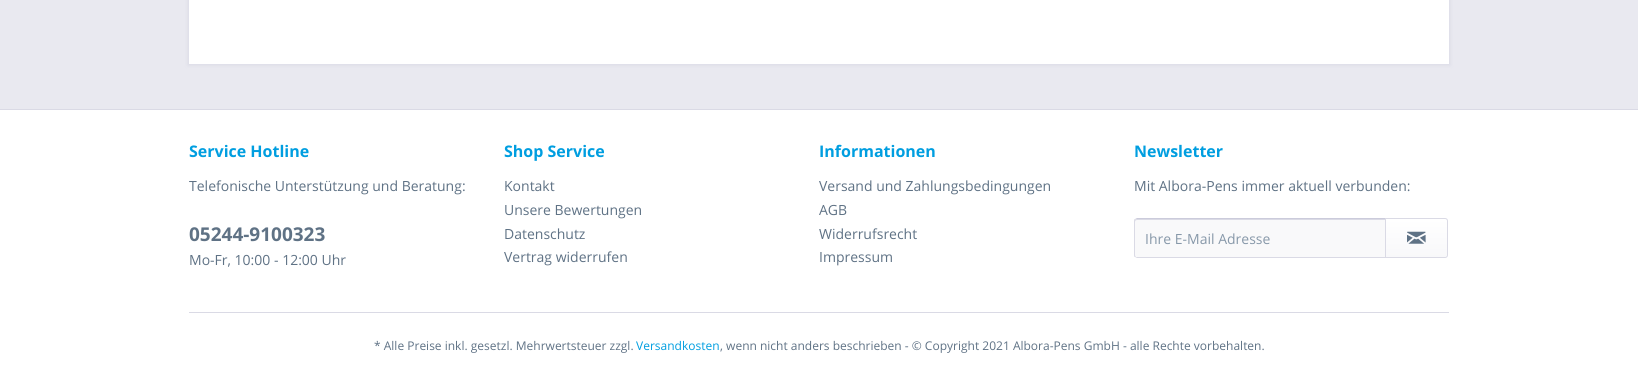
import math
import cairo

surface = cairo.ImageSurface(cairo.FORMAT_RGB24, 1638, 378)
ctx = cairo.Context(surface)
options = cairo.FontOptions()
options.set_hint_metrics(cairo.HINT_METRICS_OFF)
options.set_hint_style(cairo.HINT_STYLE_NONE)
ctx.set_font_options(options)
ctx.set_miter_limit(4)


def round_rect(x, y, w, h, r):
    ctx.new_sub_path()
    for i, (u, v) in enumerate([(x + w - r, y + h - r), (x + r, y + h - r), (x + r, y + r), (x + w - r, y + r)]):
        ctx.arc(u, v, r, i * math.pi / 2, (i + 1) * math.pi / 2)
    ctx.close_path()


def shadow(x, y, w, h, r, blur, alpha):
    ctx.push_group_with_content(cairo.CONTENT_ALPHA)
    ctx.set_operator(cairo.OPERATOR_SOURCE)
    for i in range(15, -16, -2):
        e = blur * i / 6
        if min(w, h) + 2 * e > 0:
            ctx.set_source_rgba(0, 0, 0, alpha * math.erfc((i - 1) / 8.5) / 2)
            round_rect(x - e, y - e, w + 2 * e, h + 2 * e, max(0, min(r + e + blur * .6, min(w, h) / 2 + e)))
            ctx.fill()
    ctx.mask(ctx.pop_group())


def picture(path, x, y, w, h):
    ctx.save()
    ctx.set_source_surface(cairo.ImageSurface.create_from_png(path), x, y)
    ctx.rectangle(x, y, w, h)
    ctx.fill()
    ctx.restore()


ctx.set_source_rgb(0.914, 0.914, 0.941)
ctx.paint()
ctx.set_source_rgb(0.855, 0.855, 0.898)
shadow(188, -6, 1262, 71, 0, 2, 1)
ctx.set_source_rgb(1, 1, 1)
ctx.rectangle(189, 0, 1260, 64)
ctx.fill()
ctx.rectangle(0, 110, 1638, 268)
ctx.fill()
ctx.set_source_rgb(0.855, 0.855, 0.898)
ctx.rectangle(0, 109, 1638, 1)
ctx.fill()
ctx.rectangle(189, 312, 1260, 1)
ctx.fill()
ctx.select_font_face("Open Sans", cairo.FONT_SLANT_NORMAL, cairo.FONT_WEIGHT_BOLD)
ctx.set_font_size(16)
ctx.set_source_rgb(0, 0.62, 0.878)
ctx.move_to(189, 157)
ctx.show_text("Service Hotline")
ctx.select_font_face("Open Sans")
ctx.set_font_size(14)
ctx.set_source_rgb(0.373, 0.447, 0.522)
ctx.move_to(189, 191)
ctx.show_text("Telefonische Unterstützung und Beratung:")
ctx.select_font_face("Open Sans", cairo.FONT_SLANT_NORMAL, cairo.FONT_WEIGHT_BOLD)
ctx.set_font_size(19)
ctx.move_to(189, 241)
ctx.show_text("05244-9100323")
ctx.select_font_face("Open Sans")
ctx.set_font_size(14)
ctx.move_to(189, 265)
ctx.show_text("Mo-Fr, 10:00 - 12:00 Uhr")
ctx.select_font_face("Open Sans", cairo.FONT_SLANT_NORMAL, cairo.FONT_WEIGHT_BOLD)
ctx.set_font_size(16)
ctx.set_source_rgb(0, 0.62, 0.878)
ctx.move_to(504, 157)
ctx.show_text("Shop Service")
ctx.select_font_face("Open Sans")
ctx.set_font_size(14)
ctx.set_source_rgb(0.373, 0.447, 0.522)
ctx.move_to(504, 191)
ctx.show_text("Kontakt")
ctx.move_to(504, 215)
ctx.show_text("Unsere Bewertungen")
ctx.move_to(504, 239)
ctx.show_text("Datenschutz")
ctx.move_to(504, 262)
ctx.show_text("Vertrag widerrufen")
ctx.select_font_face("Open Sans", cairo.FONT_SLANT_NORMAL, cairo.FONT_WEIGHT_BOLD)
ctx.set_font_size(16)
ctx.set_source_rgb(0, 0.62, 0.878)
ctx.move_to(819, 157)
ctx.show_text("Informationen")
ctx.select_font_face("Open Sans")
ctx.set_font_size(14)
ctx.set_source_rgb(0.373, 0.447, 0.522)
ctx.move_to(819, 191)
ctx.show_text("Versand und Zahlungsbedingungen")
ctx.move_to(819, 215)
ctx.show_text("AGB")
ctx.move_to(819, 239)
ctx.show_text("Widerrufsrecht")
ctx.move_to(819, 262)
ctx.show_text("Impressum")
ctx.select_font_face("Open Sans", cairo.FONT_SLANT_NORMAL, cairo.FONT_WEIGHT_BOLD)
ctx.set_font_size(16)
ctx.set_source_rgb(0, 0.62, 0.878)
ctx.move_to(1134, 157)
ctx.show_text("Newsletter")
ctx.select_font_face("Open Sans")
ctx.set_font_size(14)
ctx.set_source_rgb(0.373, 0.447, 0.522)
ctx.move_to(1134, 191)
ctx.show_text("Mit Albora-Pens immer aktuell verbunden:")
ctx.set_source_rgb(0.973, 0.973, 0.98)
ctx.new_path()
ctx.move_to(1137, 219)
ctx.line_to(1385, 219)
ctx.line_to(1385, 257)
ctx.line_to(1137, 257)
ctx.curve_to(1136, 257, 1135, 256, 1135, 255)
ctx.line_to(1135, 221)
ctx.curve_to(1135, 220, 1136, 219, 1137, 219)
ctx.close_path()
ctx.fill()
ctx.set_source_rgb(0.855, 0.855, 0.898)
ctx.new_path()
ctx.move_to(1137, 220)
ctx.line_to(1385, 220)
ctx.line_to(1385, 219)
ctx.line_to(1137, 219)
ctx.curve_to(1135, 219, 1135, 221, 1135, 222)
ctx.curve_to(1135, 221, 1136, 220, 1137, 220)
ctx.close_path()
ctx.fill()
ctx.set_source_rgb(0.796, 0.796, 0.859)
ctx.new_path()
ctx.move_to(1137, 218)
ctx.line_to(1135, 219)
ctx.line_to(1136, 220)
ctx.line_to(1136, 219)
ctx.line_to(1385, 219)
ctx.line_to(1386, 218)
ctx.close_path()
ctx.fill()
ctx.set_source_rgb(0.855, 0.855, 0.898)
ctx.new_path()
ctx.move_to(1386, 258)
ctx.line_to(1385, 257)
ctx.line_to(1136, 257)
ctx.line_to(1136, 256)
ctx.line_to(1135, 257)
ctx.line_to(1137, 258)
ctx.close_path()
ctx.fill()
ctx.new_path()
ctx.move_to(1134, 221)
ctx.line_to(1134, 255)
ctx.curve_to(1134, 256, 1134, 257, 1135, 257)
ctx.line_to(1135.5, 256.5)
ctx.line_to(1135, 255)
ctx.line_to(1135, 221)
ctx.line_to(1135.5, 219.5)
ctx.line_to(1135, 219)
ctx.curve_to(1134, 219, 1134, 220, 1134, 221)
ctx.close_path()
ctx.fill()
ctx.set_source_rgb(0.529, 0.596, 0.663)
ctx.move_to(1145, 244)
ctx.show_text("Ihre E-Mail Adresse")
gradient = cairo.LinearGradient(1417, 219, 1417, 257)
gradient.add_color_stop_rgba(0, 1, 1, 1, 1)
gradient.add_color_stop_rgba(1, 0.973, 0.973, 0.98, 1)
ctx.set_source(gradient)
ctx.new_path()
ctx.move_to(1386, 219)
ctx.line_to(1445, 219)
ctx.curve_to(1446, 219, 1447, 220, 1447, 221)
ctx.line_to(1447, 255)
ctx.curve_to(1447, 256, 1446, 257, 1445, 257)
ctx.line_to(1386, 257)
ctx.close_path()
ctx.fill()
ctx.new_path()
ctx.move_to(1385.5, 218.5)
ctx.line_to(1445, 218.5)
ctx.curve_to(1446.5, 218.5, 1447.5, 219.5, 1447.5, 221)
ctx.line_to(1447.5, 255)
ctx.curve_to(1447.5, 256.5, 1446.5, 257.5, 1445, 257.5)
ctx.line_to(1385.5, 257.5)
ctx.close_path()
ctx.set_source_rgb(0.855, 0.855, 0.898)
ctx.set_line_width(1)
ctx.stroke()
picture("img1.png", 1407, 231, 19, 13)
ctx.set_font_size(12)
ctx.set_source_rgb(0.373, 0.447, 0.522)
ctx.move_to(374, 350)
ctx.show_text("* Alle Preise inkl. gesetzl. Mehrwertsteuer zzgl.")
ctx.set_source_rgb(0, 0.62, 0.878)
ctx.move_to(636, 350)
ctx.show_text("Versandkosten")
ctx.set_source_rgb(0.373, 0.447, 0.522)
ctx.move_to(720, 350)
ctx.show_text(", wenn nicht anders beschrieben - © Copyright 2021 Albora-Pens GmbH - alle Rechte vorbehalten.")
surface.write_to_png("page.png")
